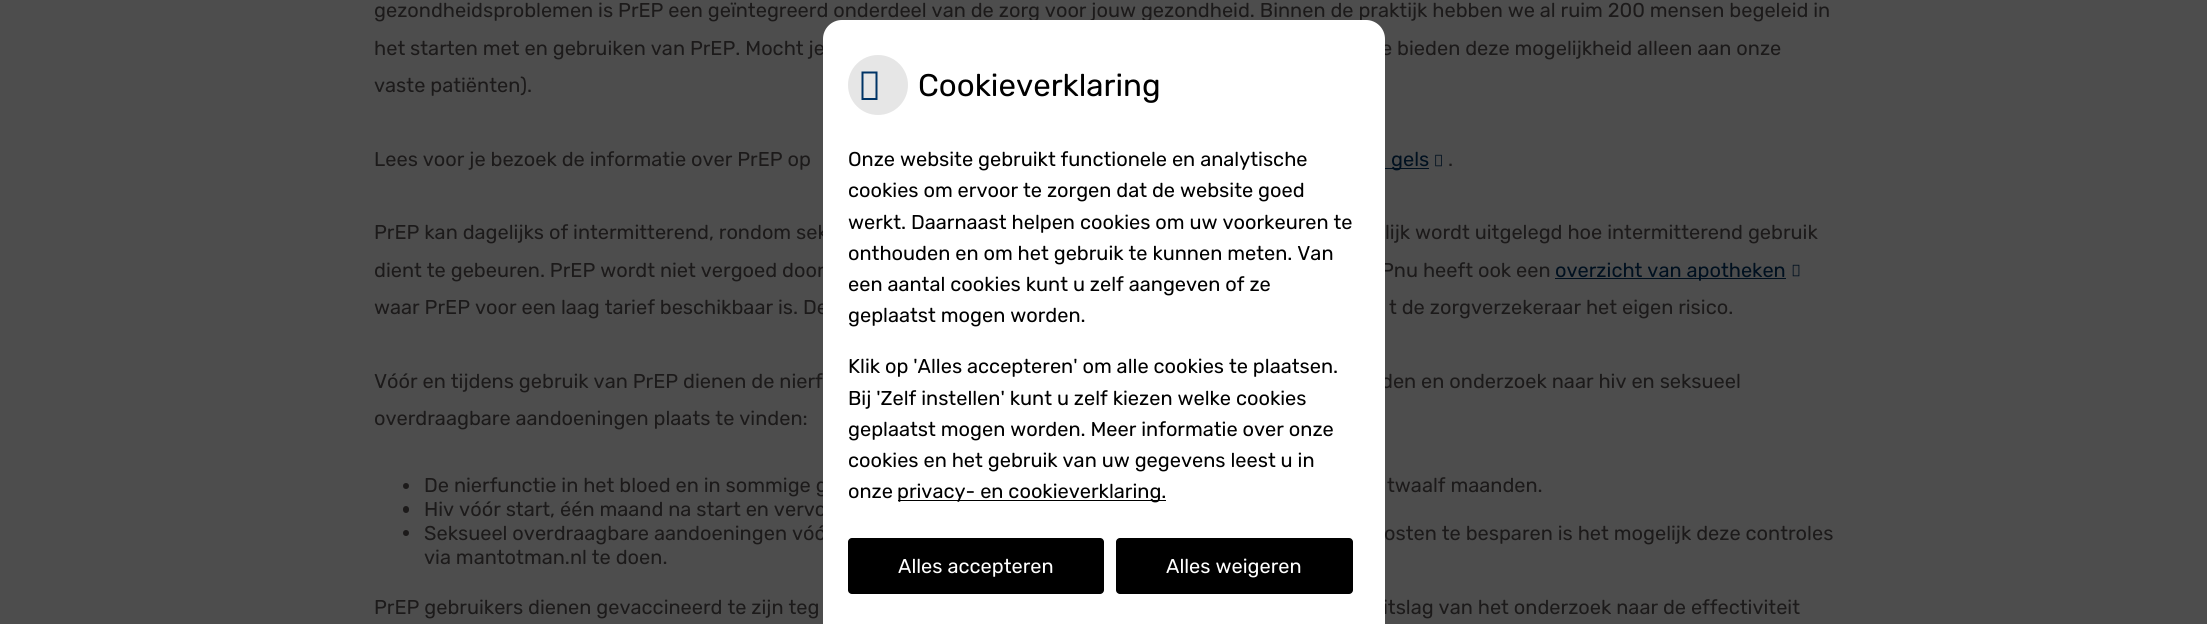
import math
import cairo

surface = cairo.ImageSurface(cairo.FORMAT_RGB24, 2207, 624)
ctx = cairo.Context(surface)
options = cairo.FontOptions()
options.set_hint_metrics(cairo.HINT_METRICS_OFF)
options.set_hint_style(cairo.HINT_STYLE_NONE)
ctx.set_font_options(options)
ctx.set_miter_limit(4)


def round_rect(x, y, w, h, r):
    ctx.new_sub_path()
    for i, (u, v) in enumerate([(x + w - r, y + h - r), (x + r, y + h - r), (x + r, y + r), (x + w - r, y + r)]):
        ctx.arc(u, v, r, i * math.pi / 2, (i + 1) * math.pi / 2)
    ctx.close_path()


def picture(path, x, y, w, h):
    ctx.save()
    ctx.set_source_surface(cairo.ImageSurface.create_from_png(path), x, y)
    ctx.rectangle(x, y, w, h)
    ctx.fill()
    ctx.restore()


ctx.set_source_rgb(0.302, 0.302, 0.302)
ctx.paint()
ctx.select_font_face("Rubik Light")
ctx.set_font_size(20)
ctx.set_source_rgb(0.11, 0.102, 0.102)
ctx.move_to(374, 17)
ctx.show_text("gezondheidsproblemen is PrEP een geïntegreerd onderdeel van de zorg voor jouw gezondheid. Binnen de praktijk hebben we al ruim 200 mensen begeleid in")
ctx.move_to(374, 55)
ctx.show_text("het starten met en gebruiken van PrEP. Mocht je")
ctx.move_to(1381, 55)
ctx.show_text("e bieden deze mogelijkheid alleen aan onze")
ctx.move_to(374, 92)
ctx.show_text("vaste patiënten).")
ctx.move_to(374, 166)
ctx.show_text("Lees voor je bezoek de informatie over PrEP op")
ctx.set_source_rgb(0, 0.063, 0.122)
ctx.rectangle(1385, 168, 44, 1)
ctx.fill()
ctx.move_to(1391, 166)
ctx.show_text("gels")
picture("img1.png", 1435, 154, 7, 13)
ctx.set_source_rgb(0.11, 0.102, 0.102)
ctx.move_to(1448, 166)
ctx.show_text(".")
ctx.move_to(374, 239)
ctx.show_text("PrEP kan dagelijks of intermitterend, rondom sek")
ctx.move_to(1385, 239)
ctx.show_text("lijk wordt uitgelegd hoe intermitterend gebruik")
ctx.move_to(374, 277)
ctx.show_text("dient te gebeuren. PrEP wordt niet vergoed door")
ctx.move_to(1381, 277)
ctx.show_text("Pnu heeft ook een")
ctx.set_source_rgb(0, 0.063, 0.122)
ctx.rectangle(1555, 278, 231, 1)
ctx.fill()
ctx.move_to(1555, 277)
ctx.show_text("overzicht van apotheken")
picture("img2.png", 1792, 264, 8, 13)
ctx.set_source_rgb(0.11, 0.102, 0.102)
ctx.move_to(374, 314)
ctx.show_text("waar PrEP voor een laag tarief beschikbaar is. De")
ctx.move_to(1389, 314)
ctx.show_text("t de zorgverzekeraar het eigen risico.")
ctx.move_to(374, 388)
ctx.show_text("Vóór en tijdens gebruik van PrEP dienen de nierf")
ctx.move_to(1381, 388)
ctx.show_text("den en onderzoek naar hiv en seksueel")
ctx.move_to(374, 425)
ctx.show_text("overdraagbare aandoeningen plaats te vinden:")
ctx.new_path()
ctx.arc(406, 486, 3, 0, 2 * math.pi)
ctx.fill()
ctx.move_to(424, 492)
ctx.show_text("De nierfunctie in het bloed en in sommige g")
ctx.move_to(1387, 492)
ctx.show_text("twaalf maanden.")
round_rect(403, 506, 6, 7, 3)
ctx.fill()
ctx.move_to(424, 516)
ctx.show_text("Hiv vóór start, één maand na start en vervo")
ctx.new_path()
ctx.arc(406, 533, 3, 0, 2 * math.pi)
ctx.fill()
ctx.move_to(424, 540)
ctx.show_text("Seksueel overdraagbare aandoeningen vóó")
ctx.move_to(1384, 540)
ctx.show_text("osten te besparen is het mogelijk deze controles")
ctx.move_to(424, 564)
ctx.show_text("via mantotman.nl te doen.")
ctx.move_to(374, 614)
ctx.show_text("PrEP gebruikers dienen gevaccineerd te zijn teg")
ctx.move_to(1383, 614)
ctx.show_text("itslag van het onderzoek naar de effectiviteit")
ctx.set_source_rgb(1, 1, 1)
ctx.new_path()
ctx.move_to(842, 20)
ctx.line_to(1366, 20)
ctx.curve_to(1376.5, 20, 1385, 28.5, 1385, 39)
ctx.line_to(1385, 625)
ctx.line_to(823, 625)
ctx.line_to(823, 39)
ctx.curve_to(823, 28.5, 831.5, 20, 842, 20)
ctx.close_path()
ctx.fill()
ctx.set_source_rgb(0.902, 0.902, 0.902)
ctx.arc(878, 85, 30, 0, 2 * math.pi)
ctx.fill()
ctx.set_source_rgb(0, 0.204, 0.4)
ctx.new_path()
ctx.move_to(861.5, 100)
ctx.line_to(861.5, 71.5)
ctx.line_to(877.5, 71.5)
ctx.line_to(877.5, 100)
ctx.close_path()
ctx.move_to(863.5, 98)
ctx.line_to(875.5, 98)
ctx.line_to(875.5, 73.5)
ctx.line_to(863.5, 73.5)
ctx.close_path()
ctx.fill()
ctx.set_font_size(31.25)
ctx.set_source_rgb(0, 0, 0)
ctx.move_to(918, 96)
ctx.show_text("Cookieverklaring")
ctx.set_font_size(20)
ctx.move_to(848, 166)
ctx.show_text("Onze website gebruikt functionele en analytische")
ctx.move_to(848, 197)
ctx.show_text("cookies om ervoor te zorgen dat de website goed")
ctx.move_to(848, 229)
ctx.show_text("werkt. Daarnaast helpen cookies om uw voorkeuren te")
ctx.move_to(848, 260)
ctx.show_text("onthouden en om het gebruik te kunnen meten. Van")
ctx.move_to(848, 291)
ctx.show_text("een aantal cookies kunt u zelf aangeven of ze")
ctx.move_to(848, 322)
ctx.show_text("geplaatst mogen worden.")
ctx.move_to(848, 373)
ctx.show_text("Klik op 'Alles accepteren' om alle cookies te plaatsen.")
ctx.move_to(848, 405)
ctx.show_text("Bij 'Zelf instellen' kunt u zelf kiezen welke cookies")
ctx.move_to(848, 436)
ctx.show_text("geplaatst mogen worden. Meer informatie over onze")
ctx.move_to(848, 467)
ctx.show_text("cookies en het gebruik van uw gegevens leest u in")
ctx.move_to(848, 498)
ctx.show_text("onze")
ctx.rectangle(898, 500, 268, 1)
ctx.fill()
ctx.move_to(897, 498)
ctx.show_text("privacy- en cookieverklaring.")
round_rect(848, 538, 256, 56, 4)
ctx.fill()
ctx.set_source_rgb(1, 1, 1)
ctx.move_to(898, 573)
ctx.show_text("Alles accepteren")
ctx.set_source_rgb(0, 0, 0)
round_rect(1116, 538, 237, 56, 4)
ctx.fill()
ctx.set_source_rgb(1, 1, 1)
ctx.move_to(1166, 573)
ctx.show_text("Alles weigeren")
surface.write_to_png("page.png")
